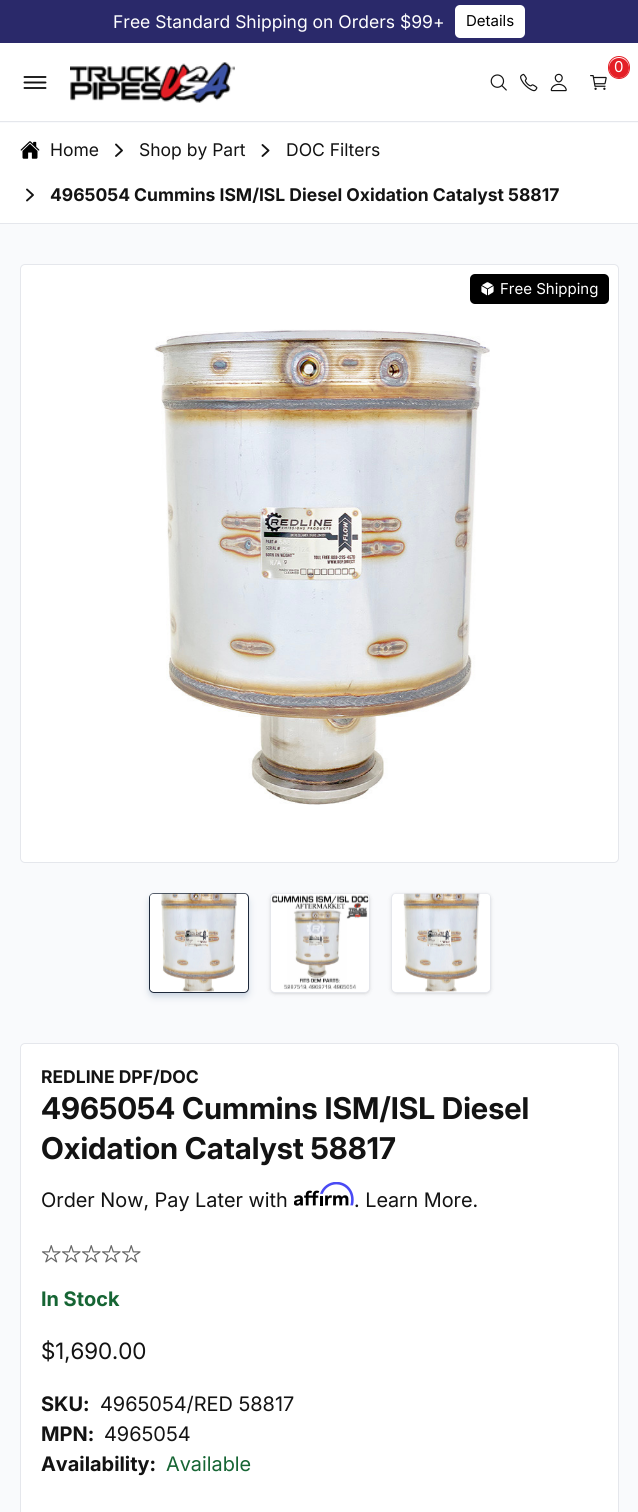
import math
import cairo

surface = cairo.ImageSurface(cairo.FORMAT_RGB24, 638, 1512)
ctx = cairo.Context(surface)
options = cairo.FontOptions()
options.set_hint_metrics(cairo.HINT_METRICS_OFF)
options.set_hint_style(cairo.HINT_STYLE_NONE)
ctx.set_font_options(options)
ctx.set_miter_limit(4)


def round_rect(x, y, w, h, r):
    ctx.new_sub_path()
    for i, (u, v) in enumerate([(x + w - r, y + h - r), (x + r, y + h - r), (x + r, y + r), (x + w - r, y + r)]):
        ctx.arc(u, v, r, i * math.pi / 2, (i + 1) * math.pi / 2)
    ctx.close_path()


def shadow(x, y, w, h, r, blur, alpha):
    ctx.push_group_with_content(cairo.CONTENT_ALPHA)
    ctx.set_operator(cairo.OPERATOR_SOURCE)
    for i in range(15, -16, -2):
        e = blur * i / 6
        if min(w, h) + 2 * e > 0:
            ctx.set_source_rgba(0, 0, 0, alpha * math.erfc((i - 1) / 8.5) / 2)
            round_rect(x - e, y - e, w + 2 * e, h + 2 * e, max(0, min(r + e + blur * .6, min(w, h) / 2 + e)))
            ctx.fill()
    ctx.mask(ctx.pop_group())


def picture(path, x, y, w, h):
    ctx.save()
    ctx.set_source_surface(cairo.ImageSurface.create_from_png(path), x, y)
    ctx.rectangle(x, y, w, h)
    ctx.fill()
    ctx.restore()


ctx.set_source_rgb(0.973, 0.98, 0.988)
ctx.paint()
ctx.set_source_rgb(0.165, 0.161, 0.416)
ctx.rectangle(0, 0, 638, 43)
ctx.fill()
ctx.select_font_face("Inter")
ctx.set_font_size(17.5)
ctx.set_source_rgb(1, 1, 1)
ctx.move_to(113, 28)
ctx.show_text("Free Standard Shipping on Orders $99+")
round_rect(455, 5, 70, 33, 5)
ctx.fill()
ctx.set_font_size(15)
ctx.set_source_rgb(0, 0, 0)
ctx.move_to(466, 26)
ctx.show_text("Details")
ctx.set_source_rgb(1, 1, 1)
ctx.rectangle(0, 43, 638, 78)
ctx.fill()
ctx.set_source_rgb(0.898, 0.906, 0.922)
ctx.rectangle(0, 121, 638, 1)
ctx.fill()
ctx.new_path()
ctx.move_to(24.5, 77)
ctx.line_to(45.5, 77)
ctx.move_to(24.5, 82.5)
ctx.line_to(45.5, 82.5)
ctx.move_to(24.5, 88)
ctx.line_to(45.5, 88)
ctx.set_source_rgb(0.075, 0.075, 0.075)
ctx.set_line_width(1.9)
ctx.set_line_cap(cairo.LINE_CAP_ROUND)
ctx.stroke()
picture("img1.png", 70, 62, 165, 41)
round_rect(608.5, 56.5, 21, 22, 10.5)
ctx.set_source_rgb(0.894, 0.122, 0.149)
ctx.set_line_width(1)
ctx.set_line_cap(cairo.LINE_CAP_BUTT)
ctx.stroke()
ctx.arc(619, 68, 10, 0, 2 * math.pi)
ctx.fill()
ctx.set_source_rgb(1, 1, 1)
ctx.move_to(614, 72)
ctx.show_text("0")
picture("img2.png", 590, 75, 17, 15)
picture("img3.png", 490, 74, 17, 17)
picture("img4.png", 520, 73, 18, 19)
picture("img5.png", 550, 73, 17, 19)
ctx.rectangle(0, 123, 638, 100)
ctx.fill()
ctx.set_source_rgb(0.898, 0.906, 0.922)
ctx.rectangle(0, 223, 638, 1)
ctx.fill()
picture("img6.png", 20, 141, 20, 18)
ctx.set_font_size(17.5)
ctx.set_source_rgb(0.075, 0.075, 0.075)
ctx.move_to(50, 156)
ctx.show_text("Home")
ctx.new_path()
ctx.move_to(116, 156)
ctx.line_to(122, 150.5)
ctx.line_to(116, 144.5)
ctx.set_line_width(1.9)
ctx.set_line_cap(cairo.LINE_CAP_ROUND)
ctx.set_line_join(cairo.LINE_JOIN_ROUND)
ctx.stroke()
ctx.move_to(139, 156)
ctx.show_text("Shop by Part")
ctx.new_path()
ctx.move_to(262.5, 156)
ctx.line_to(268.5, 150.5)
ctx.line_to(262.5, 145)
ctx.stroke()
ctx.move_to(286, 156)
ctx.show_text("DOC Filters")
ctx.new_path()
ctx.move_to(27, 200.5)
ctx.line_to(33, 195)
ctx.line_to(27, 189.5)
ctx.stroke()
ctx.select_font_face("Inter", cairo.FONT_SLANT_NORMAL, cairo.FONT_WEIGHT_BOLD)
ctx.move_to(50, 201)
ctx.show_text("4965054 Cummins ISM/ISL Diesel Oxidation Catalyst 58817")
ctx.set_source_rgb(1, 1, 1)
round_rect(20.5, 264.5, 598, 598, 4.5)
ctx.fill_preserve()
ctx.set_source_rgb(0.898, 0.906, 0.922)
ctx.set_line_width(1)
ctx.set_line_cap(cairo.LINE_CAP_BUTT)
ctx.set_line_join(cairo.LINE_JOIN_MITER)
ctx.stroke()
picture("img7.png", 154, 329, 336, 476)
ctx.set_source_rgb(0.796, 0.835, 0.882)
shadow(151, 898, 95, 95, 2.5, 2.5, 1)
shadow(150, 899, 98, 97, 4, 4, 1)
ctx.set_source_rgb(1, 1, 1)
round_rect(149.5, 893.5, 99, 99, 4.5)
ctx.fill_preserve()
ctx.set_source_rgb(0.118, 0.161, 0.231)
ctx.stroke()
picture("img8.png", 150, 893, 98, 99)
ctx.set_source_rgb(0, 0, 0)
shadow(271, 895, 98, 98, 4, 1, 0.1)
shadow(270, 894, 100, 100, 5, 2, 0.1)
ctx.set_source_rgb(1, 1, 1)
round_rect(270.5, 893.5, 99, 99, 4.5)
ctx.fill_preserve()
ctx.set_source_rgb(0.898, 0.906, 0.922)
ctx.stroke()
picture("img9.png", 271, 893, 98, 97)
ctx.set_source_rgb(0, 0, 0)
shadow(393, 895, 97, 98, 4, 1, 0.1)
shadow(391, 894, 100, 100, 5, 2, 0.1)
ctx.set_source_rgb(1, 1, 1)
round_rect(391.5, 893.5, 99, 99, 4.5)
ctx.fill_preserve()
ctx.set_source_rgb(0.898, 0.906, 0.922)
ctx.stroke()
picture("img10.png", 393, 893, 97, 99)
ctx.set_source_rgb(0, 0, 0)
round_rect(470, 274, 139, 30, 5)
ctx.fill()
picture("img11.png", 481, 282, 13, 14)
ctx.select_font_face("Inter")
ctx.set_font_size(15)
ctx.set_source_rgb(1, 1, 1)
ctx.move_to(500, 294)
ctx.show_text("Free Shipping")
round_rect(20.5, 1043.5, 598, 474, 4.5)
ctx.fill_preserve()
ctx.set_source_rgb(0.898, 0.906, 0.922)
ctx.stroke()
ctx.select_font_face("Inter", cairo.FONT_SLANT_NORMAL, cairo.FONT_WEIGHT_BOLD)
ctx.set_font_size(17.5)
ctx.set_source_rgb(0.075, 0.075, 0.075)
ctx.move_to(41, 1083)
ctx.show_text("REDLINE DPF/DOC")
ctx.select_font_face("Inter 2", cairo.FONT_SLANT_NORMAL, cairo.FONT_WEIGHT_BOLD)
ctx.set_font_size(30)
ctx.move_to(41, 1119)
ctx.show_text("4965054 Cummins ISM/ISL Diesel")
ctx.move_to(41, 1159)
ctx.show_text("Oxidation Catalyst 58817")
ctx.select_font_face("Inter 2")
ctx.set_font_size(20)
ctx.move_to(41, 1207)
ctx.show_text("Order Now, Pay Later with")
picture("img12.png", 294, 1182, 60, 24)
ctx.move_to(354, 1207)
ctx.show_text(". Learn More.")
picture("img13.png", 41, 1245, 20, 18)
picture("img13.png", 61, 1245, 20, 18)
picture("img13.png", 81, 1245, 20, 18)
picture("img13.png", 101, 1245, 20, 18)
picture("img13.png", 121, 1245, 20, 18)
ctx.select_font_face("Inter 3", cairo.FONT_SLANT_NORMAL, cairo.FONT_WEIGHT_BOLD)
ctx.set_source_rgb(0.086, 0.396, 0.204)
ctx.move_to(41, 1306)
ctx.show_text("In Stock")
ctx.select_font_face("Inter 3")
ctx.set_font_size(22.5)
ctx.set_source_rgb(0.075, 0.075, 0.075)
ctx.move_to(41, 1359)
ctx.show_text("$1,690.00")
ctx.select_font_face("Inter 3", cairo.FONT_SLANT_NORMAL, cairo.FONT_WEIGHT_BOLD)
ctx.set_font_size(20)
ctx.move_to(41, 1411)
ctx.show_text("SKU:")
ctx.select_font_face("Inter 2")
ctx.move_to(100, 1411)
ctx.show_text("4965054/RED 58817")
ctx.select_font_face("Inter 3", cairo.FONT_SLANT_NORMAL, cairo.FONT_WEIGHT_BOLD)
ctx.move_to(41, 1441)
ctx.show_text("MPN:")
ctx.select_font_face("Inter 2")
ctx.move_to(104, 1441)
ctx.show_text("4965054")
ctx.select_font_face("Inter 3", cairo.FONT_SLANT_NORMAL, cairo.FONT_WEIGHT_BOLD)
ctx.move_to(41, 1471)
ctx.show_text("Availability:")
ctx.select_font_face("Inter 2")
ctx.set_source_rgb(0.086, 0.396, 0.204)
ctx.move_to(166, 1471)
ctx.show_text("Available")
surface.write_to_png("page.png")
